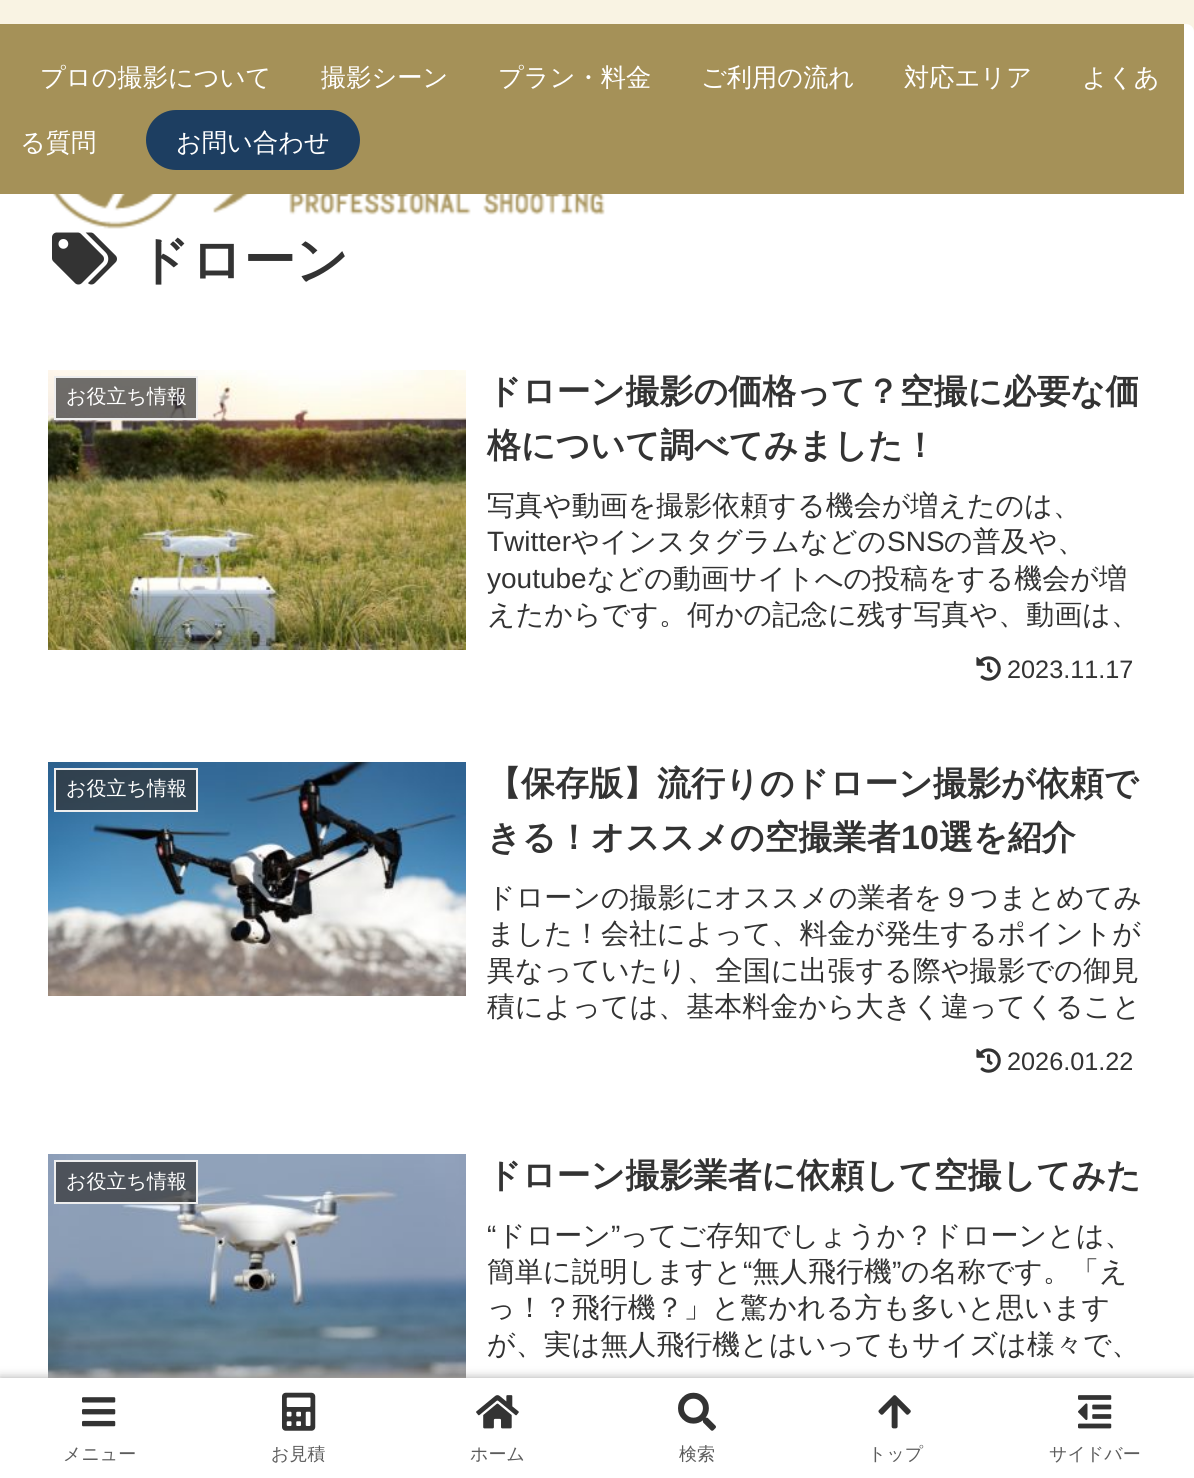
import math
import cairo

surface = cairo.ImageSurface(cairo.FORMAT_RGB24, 1194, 1478)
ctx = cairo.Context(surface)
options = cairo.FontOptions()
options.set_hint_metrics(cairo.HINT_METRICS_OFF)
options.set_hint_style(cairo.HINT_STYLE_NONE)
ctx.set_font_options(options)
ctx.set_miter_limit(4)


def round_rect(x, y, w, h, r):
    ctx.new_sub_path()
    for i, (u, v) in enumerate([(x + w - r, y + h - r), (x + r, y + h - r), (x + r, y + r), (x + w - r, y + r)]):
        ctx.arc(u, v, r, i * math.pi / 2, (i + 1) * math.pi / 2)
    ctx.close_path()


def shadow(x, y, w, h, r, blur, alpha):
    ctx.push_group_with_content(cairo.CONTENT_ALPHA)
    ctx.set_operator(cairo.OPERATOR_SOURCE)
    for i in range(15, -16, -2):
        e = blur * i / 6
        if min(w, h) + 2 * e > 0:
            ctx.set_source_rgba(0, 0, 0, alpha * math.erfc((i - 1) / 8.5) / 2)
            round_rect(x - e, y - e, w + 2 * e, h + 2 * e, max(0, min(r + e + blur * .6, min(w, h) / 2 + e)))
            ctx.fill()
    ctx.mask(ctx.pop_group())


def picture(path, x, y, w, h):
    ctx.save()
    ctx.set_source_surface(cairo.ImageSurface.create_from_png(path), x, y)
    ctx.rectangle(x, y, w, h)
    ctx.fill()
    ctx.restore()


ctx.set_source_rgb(0.976, 0.953, 0.89)
ctx.paint()
ctx.set_source_rgb(1, 1, 1)
round_rect(0, 24, 1194, 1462, 8)
ctx.fill()
ctx.set_source_rgb(0.647, 0.569, 0.345)
ctx.rectangle(0, 24, 1184, 170)
ctx.fill()
ctx.select_font_face("WenQuanYi Zen Hei Medium")
ctx.set_font_size(25.25)
ctx.set_source_rgb(1, 1, 1)
ctx.move_to(40, 86)
ctx.show_text("プロの撮影について")
ctx.move_to(321, 86)
ctx.show_text("撮影シーン")
ctx.move_to(498, 86)
ctx.show_text("プラン・料金")
ctx.move_to(701, 86)
ctx.show_text("ご利用の流れ")
ctx.move_to(904, 86)
ctx.show_text("対応エリア")
ctx.move_to(1082, 86)
ctx.show_text("よくあ")
ctx.move_to(20, 151)
ctx.show_text("る質問")
ctx.set_source_rgb(0.114, 0.243, 0.38)
round_rect(146, 110, 214, 60, 30)
ctx.fill()
ctx.set_source_rgb(1, 1, 1)
ctx.move_to(176, 151)
ctx.show_text("お問い合わせ")
picture("img1.png", 52, 194, 553, 35)
picture("img2.png", 52, 232, 65, 53)
ctx.select_font_face("WenQuanYi Zen Hei", cairo.FONT_SLANT_NORMAL, cairo.FONT_WEIGHT_BOLD)
ctx.set_font_size(52)
ctx.set_source_rgb(0.2, 0.2, 0.2)
ctx.move_to(137, 278)
ctx.show_text("ドローン")
picture("img3.png", 48, 370, 418, 280)
ctx.set_source_rgba(0.2, 0.2, 0.2, 0.7)
ctx.rectangle(55, 377, 142, 42)
ctx.fill_preserve()
ctx.set_source_rgb(0.933, 0.933, 0.933)
ctx.stroke()
ctx.select_font_face("WenQuanYi Zen Hei Medium")
ctx.set_font_size(20)
ctx.set_source_rgb(1, 1, 1)
ctx.move_to(66, 403)
ctx.show_text("お役立ち情報")
ctx.select_font_face("WenQuanYi Zen Hei", cairo.FONT_SLANT_NORMAL, cairo.FONT_WEIGHT_BOLD)
ctx.set_font_size(34)
ctx.set_source_rgb(0.2, 0.2, 0.2)
ctx.move_to(487, 403)
ctx.show_text("ドローン撮影の価格って？空撮に必要な価")
ctx.move_to(487, 457)
ctx.show_text("格について調べてみました！")
ctx.select_font_face("WenQuanYi Zen Hei Medium")
ctx.set_font_size(28)
ctx.move_to(487, 515)
ctx.show_text("写真や動画を撮影依頼する機会が増えたのは、")
ctx.select_font_face("Liberation Sans")
ctx.move_to(487, 551)
ctx.show_text("Twitter")
ctx.select_font_face("WenQuanYi Zen Hei Medium")
ctx.move_to(571, 551)
ctx.show_text("やインスタグラムなどの")
ctx.select_font_face("Liberation Sans")
ctx.move_to(887, 551)
ctx.show_text("SNS")
ctx.select_font_face("WenQuanYi Zen Hei Medium")
ctx.move_to(944, 551)
ctx.show_text("の普及や、")
ctx.select_font_face("Liberation Sans")
ctx.move_to(487, 588)
ctx.show_text("youtube")
ctx.select_font_face("WenQuanYi Zen Hei Medium")
ctx.move_to(587, 588)
ctx.show_text("などの動画サイトへの投稿をする機会が増")
ctx.move_to(487, 624)
ctx.show_text("えたからです。何かの記念に残す写真や、動画は、")
picture("img4.png", 976, 656, 25, 25)
ctx.select_font_face("Liberation Sans")
ctx.set_font_size(25.25)
ctx.move_to(1007, 678)
ctx.show_text("2023.11.17")
picture("img5.png", 48, 762, 418, 234)
ctx.set_source_rgba(0.2, 0.2, 0.2, 0.7)
ctx.rectangle(55, 769, 142, 42)
ctx.fill_preserve()
ctx.set_source_rgb(0.933, 0.933, 0.933)
ctx.stroke()
ctx.select_font_face("WenQuanYi Zen Hei Medium")
ctx.set_font_size(20)
ctx.set_source_rgb(1, 1, 1)
ctx.move_to(66, 795)
ctx.show_text("お役立ち情報")
ctx.select_font_face("WenQuanYi Zen Hei", cairo.FONT_SLANT_NORMAL, cairo.FONT_WEIGHT_BOLD)
ctx.set_font_size(34)
ctx.set_source_rgb(0.2, 0.2, 0.2)
ctx.move_to(487, 795)
ctx.show_text("【保存版】流行りのドローン撮影が依頼で")
ctx.move_to(487, 849)
ctx.show_text("きる！オススメの空撮業者")
ctx.select_font_face("Liberation Sans", cairo.FONT_SLANT_NORMAL, cairo.FONT_WEIGHT_BOLD)
ctx.move_to(901, 849)
ctx.show_text("10")
ctx.select_font_face("WenQuanYi Zen Hei", cairo.FONT_SLANT_NORMAL, cairo.FONT_WEIGHT_BOLD)
ctx.move_to(939, 849)
ctx.show_text("選を紹介")
ctx.select_font_face("WenQuanYi Zen Hei Medium")
ctx.set_font_size(28)
ctx.move_to(487, 907)
ctx.show_text("ドローンの撮影にオススメの業者を９つまとめてみ")
ctx.move_to(487, 943)
ctx.show_text("ました！会社によって、料金が発生するポイントが")
ctx.move_to(487, 980)
ctx.show_text("異なっていたり、全国に出張する際や撮影での御見")
ctx.move_to(487, 1016)
ctx.show_text("積によっては、基本料金から大きく違ってくること")
picture("img4.png", 976, 1048, 25, 25)
ctx.select_font_face("Liberation Sans")
ctx.set_font_size(25.25)
ctx.move_to(1007, 1070)
ctx.show_text("2026.01.22")
picture("img6.png", 48, 1154, 418, 224)
ctx.set_source_rgba(0.2, 0.2, 0.2, 0.7)
ctx.rectangle(55, 1161, 142, 42)
ctx.fill_preserve()
ctx.set_source_rgb(0.933, 0.933, 0.933)
ctx.stroke()
ctx.select_font_face("WenQuanYi Zen Hei Medium")
ctx.set_font_size(20)
ctx.set_source_rgb(1, 1, 1)
ctx.move_to(66, 1188)
ctx.show_text("お役立ち情報")
ctx.select_font_face("WenQuanYi Zen Hei", cairo.FONT_SLANT_NORMAL, cairo.FONT_WEIGHT_BOLD)
ctx.set_font_size(34)
ctx.set_source_rgb(0.2, 0.2, 0.2)
ctx.move_to(487, 1187)
ctx.show_text("ドローン撮影業者に依頼して空撮してみた")
ctx.select_font_face("Liberation Sans")
ctx.set_font_size(28)
ctx.move_to(487, 1245)
ctx.show_text("“")
ctx.select_font_face("WenQuanYi Zen Hei Medium")
ctx.move_to(497, 1245)
ctx.show_text("ドローン")
ctx.select_font_face("Liberation Sans")
ctx.move_to(611, 1245)
ctx.show_text("”")
ctx.select_font_face("WenQuanYi Zen Hei Medium")
ctx.move_to(620, 1245)
ctx.show_text("ってご存知でしょうか？ドローンとは、")
ctx.move_to(487, 1281)
ctx.show_text("簡単に説明しますと")
ctx.select_font_face("Liberation Sans")
ctx.move_to(743, 1281)
ctx.show_text("“")
ctx.select_font_face("WenQuanYi Zen Hei Medium")
ctx.move_to(752, 1281)
ctx.show_text("無人飛行機")
ctx.select_font_face("Liberation Sans")
ctx.move_to(892, 1281)
ctx.show_text("”")
ctx.select_font_face("WenQuanYi Zen Hei Medium")
ctx.move_to(901, 1281)
ctx.show_text("の名称です。「え")
ctx.move_to(487, 1317)
ctx.show_text("っ！？飛行機？」と驚かれる方も多いと思います")
ctx.move_to(487, 1354)
ctx.show_text("が、実は無人飛行機とはいってもサイズは様々で、")
ctx.set_source_rgb(0.663, 0.663, 0.663)
shadow(0, 1378, 1194, 100, 0, 5, 1)
ctx.set_source_rgb(1, 1, 1)
ctx.rectangle(0, 1378, 1194, 100)
ctx.fill()
picture("img7.png", 82, 1397, 34, 30)
ctx.set_font_size(18)
ctx.set_source_rgb(0.361, 0.361, 0.361)
ctx.move_to(63, 1460)
ctx.show_text("メニュー")
picture("img8.png", 282, 1392, 34, 39)
ctx.move_to(271, 1460)
ctx.show_text("お見積")
picture("img9.png", 476, 1395, 43, 34)
ctx.move_to(470, 1460)
ctx.show_text("ホーム")
picture("img10.png", 678, 1392, 38, 39)
ctx.move_to(679, 1460)
ctx.show_text("検索")
picture("img11.png", 878, 1395, 33, 34)
ctx.move_to(868, 1460)
ctx.show_text("トップ")
picture("img12.png", 1078, 1395, 34, 34)
ctx.move_to(1049, 1460)
ctx.show_text("サイドバー")
surface.write_to_png("page.png")
